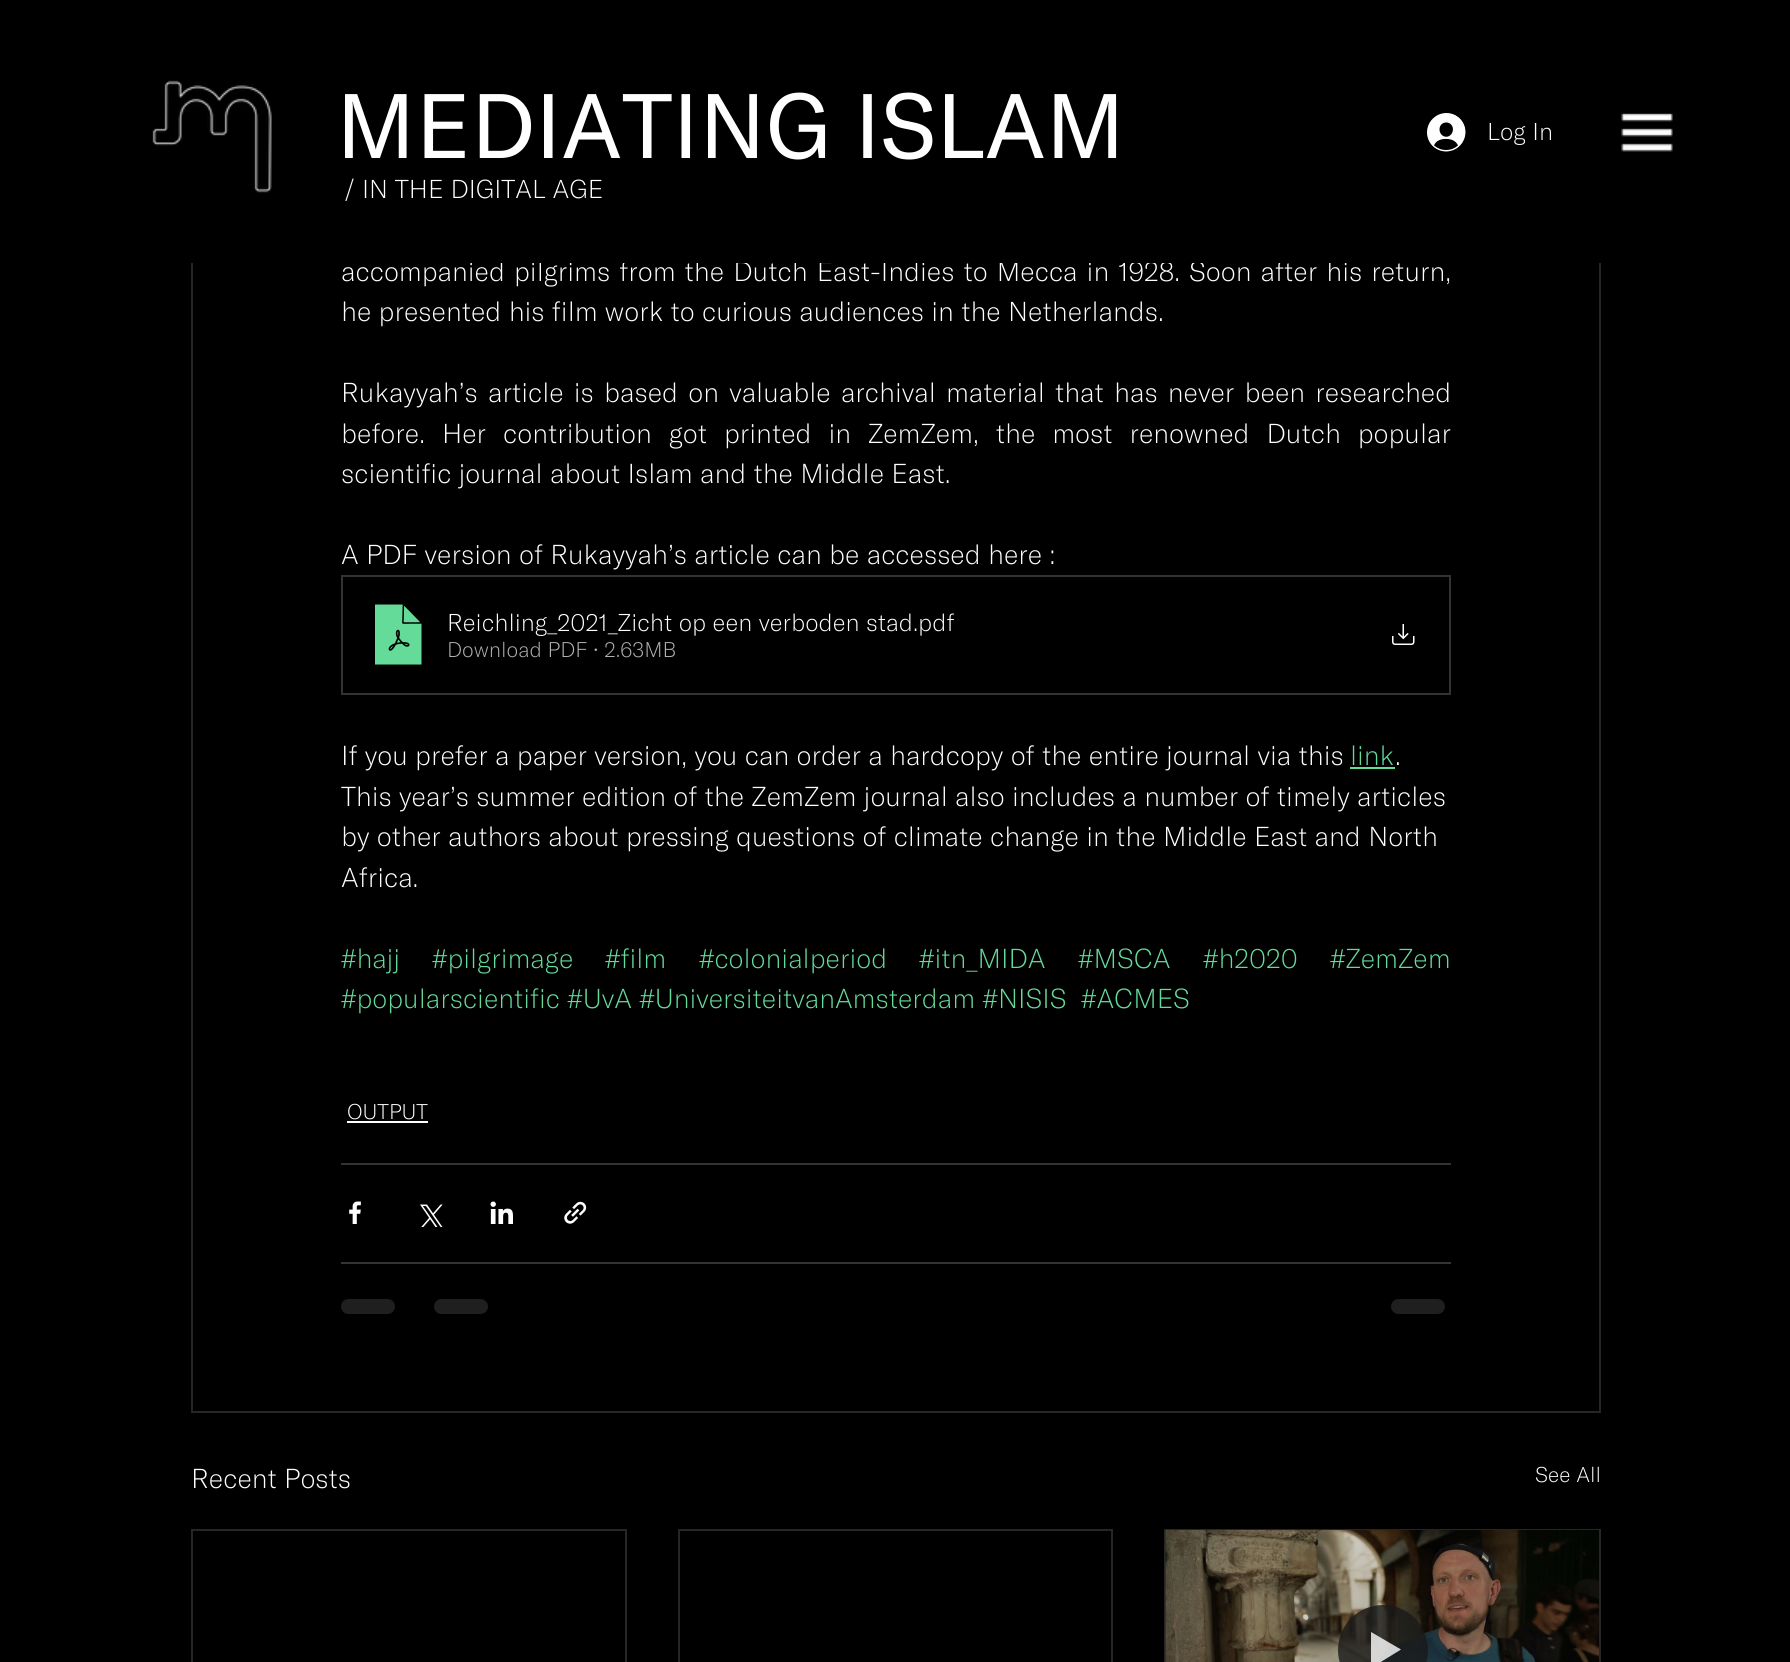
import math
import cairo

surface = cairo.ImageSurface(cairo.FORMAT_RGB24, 1790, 1662)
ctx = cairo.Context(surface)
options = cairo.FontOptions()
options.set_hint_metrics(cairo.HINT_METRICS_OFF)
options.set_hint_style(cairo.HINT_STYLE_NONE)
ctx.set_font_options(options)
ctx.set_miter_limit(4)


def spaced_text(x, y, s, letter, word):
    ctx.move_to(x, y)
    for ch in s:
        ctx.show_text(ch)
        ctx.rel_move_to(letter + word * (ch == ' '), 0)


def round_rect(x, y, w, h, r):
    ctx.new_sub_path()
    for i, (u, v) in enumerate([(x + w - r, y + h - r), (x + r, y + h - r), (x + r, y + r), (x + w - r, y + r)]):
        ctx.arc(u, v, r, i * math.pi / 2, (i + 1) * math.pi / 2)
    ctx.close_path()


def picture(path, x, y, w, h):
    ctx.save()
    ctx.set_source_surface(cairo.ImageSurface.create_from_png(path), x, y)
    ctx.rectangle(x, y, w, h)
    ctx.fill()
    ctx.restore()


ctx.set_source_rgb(0, 0, 0)
ctx.paint()
ctx.rectangle(192, -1, 1408, 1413)
ctx.set_source_rgb(0.149, 0.149, 0.149)
ctx.stroke()
ctx.select_font_face("GT America Thin")
ctx.set_font_size(27)
ctx.set_source_rgb(1, 1, 1)
spaced_text(341, 281, "accompanied pilgrims from the Dutch East-Indies to Mecca in 1928. Soon after his return,", 0, 1.75)
ctx.set_source_rgb(0, 0, 0)
ctx.rectangle(191, 0, 1410, 263)
ctx.fill()
picture("img1.png", 152, 80, 120, 113)
ctx.select_font_face("GT America")
ctx.set_font_size(90)
ctx.set_source_rgb(1, 1, 1)
ctx.move_to(336, 158)
ctx.show_text("MEDIATING ISLAM")
ctx.select_font_face("GT America Thin")
ctx.set_font_size(25.5)
ctx.move_to(344, 198)
ctx.show_text("/ IN THE DIGITAL AGE")
picture("img2.png", 1427, 113, 39, 39)
ctx.set_font_size(24)
ctx.move_to(1487, 140)
ctx.show_text("Log In")
picture("img3.png", 1621, 113, 52, 39)
ctx.set_font_size(27)
ctx.move_to(341, 321)
ctx.show_text("he presented his film work to curious audiences in the Netherlands.")
spaced_text(341, 402, "Rukayyah’s article is based on valuable archival material that has never been researched", 0, 2.9)
spaced_text(341, 443, "before. Her contribution got printed in ZemZem, the most renowned Dutch popular", 0, 9.6)
ctx.move_to(341, 483)
ctx.show_text("scientific journal about Islam and the Middle East.")
ctx.move_to(341, 564)
ctx.show_text("A PDF version of Rukayyah’s article can be accessed here :")
ctx.rectangle(342, 576, 1108, 118)
ctx.set_source_rgb(0.2, 0.2, 0.2)
ctx.stroke()
picture("img4.png", 375, 604, 48, 62)
ctx.set_font_size(24)
ctx.set_source_rgb(1, 1, 1)
ctx.move_to(447, 631)
ctx.show_text("Reichling_2021_Zicht op een verboden stad")
ctx.move_to(913, 631)
ctx.show_text(".pdf")
ctx.set_font_size(21)
ctx.set_source_rgb(0.702, 0.702, 0.702)
ctx.move_to(447, 657)
ctx.show_text("Download PDF • 2.63MB")
picture("img5.png", 1392, 624, 23, 21)
ctx.set_font_size(27)
ctx.set_source_rgb(1, 1, 1)
ctx.move_to(341, 765)
ctx.show_text("If you prefer a paper version, you can order a hardcopy of the entire journal via this")
ctx.set_source_rgb(0.396, 0.859, 0.604)
ctx.move_to(1350, 765)
ctx.show_text("link")
ctx.rectangle(1350, 767, 45, 2)
ctx.fill()
ctx.set_source_rgb(1, 1, 1)
ctx.move_to(1395, 765)
ctx.show_text(".")
ctx.move_to(341, 806)
ctx.show_text("This year’s summer edition of the ZemZem journal also includes a number of timely articles")
ctx.move_to(341, 846)
ctx.show_text("by other authors about pressing questions of climate change in the Middle East and North")
ctx.move_to(341, 887)
ctx.show_text("Africa.")
ctx.set_source_rgb(0.396, 0.859, 0.604)
ctx.move_to(341, 968)
ctx.show_text("#hajj")
ctx.move_to(432, 968)
ctx.show_text("#pilgrimage")
ctx.move_to(605, 968)
ctx.show_text("#film")
ctx.move_to(699, 968)
ctx.show_text("#colonialperiod")
ctx.move_to(919, 968)
ctx.show_text("#itn_MIDA")
ctx.move_to(1078, 968)
ctx.show_text("#MSCA")
ctx.move_to(1203, 968)
ctx.show_text("#h2020")
ctx.move_to(1330, 968)
ctx.show_text("#ZemZem")
ctx.move_to(341, 1008)
ctx.show_text("#popularscientific #UvA #UniversiteitvanAmsterdam #NISIS")
ctx.move_to(1081, 1008)
ctx.show_text("#ACMES")
ctx.set_font_size(21)
ctx.set_source_rgb(1, 1, 1)
ctx.move_to(347, 1119)
ctx.show_text("OUTPUT")
ctx.rectangle(347, 1121, 81, 2)
ctx.fill()
ctx.set_source_rgb(0.2, 0.2, 0.2)
ctx.rectangle(341, 1163, 1110, 2)
ctx.fill()
picture("img6.png", 349, 1201, 12, 23)
picture("img7.png", 420, 1204, 23, 23)
picture("img8.png", 490, 1201, 23, 23)
picture("img9.png", 564, 1201, 23, 23)
ctx.rectangle(341, 1262, 1110, 2)
ctx.fill()
ctx.set_source_rgb(0.122, 0.122, 0.122)
round_rect(341, 1299, 54, 15, 7.5)
ctx.fill()
round_rect(434, 1299, 54, 15, 7.5)
ctx.fill()
round_rect(1391, 1299, 54, 15, 7.5)
ctx.fill()
ctx.set_font_size(27)
ctx.set_source_rgb(1, 1, 1)
ctx.move_to(191, 1488)
ctx.show_text("Recent Posts")
ctx.set_font_size(21)
ctx.move_to(1535, 1482)
ctx.show_text("See All")
ctx.rectangle(192, 1530, 434, 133)
ctx.set_source_rgb(0.149, 0.149, 0.149)
ctx.stroke()
ctx.rectangle(679, 1530, 433, 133)
ctx.stroke()
ctx.rectangle(1165, 1530, 435, 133)
ctx.stroke()
picture("img10.png", 1165, 1530, 434, 132)
ctx.set_source_rgba(0.102, 0.102, 0.102, 0.8)
ctx.arc(1383, 1650, 45, 0, 2 * math.pi)
ctx.fill()
ctx.set_source_rgba(1, 1, 1, 0.8)
ctx.new_path()
ctx.move_to(1371, 1632)
ctx.line_to(1371, 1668)
ctx.line_to(1401, 1649.5)
ctx.close_path()
ctx.fill()
surface.write_to_png("page.png")
